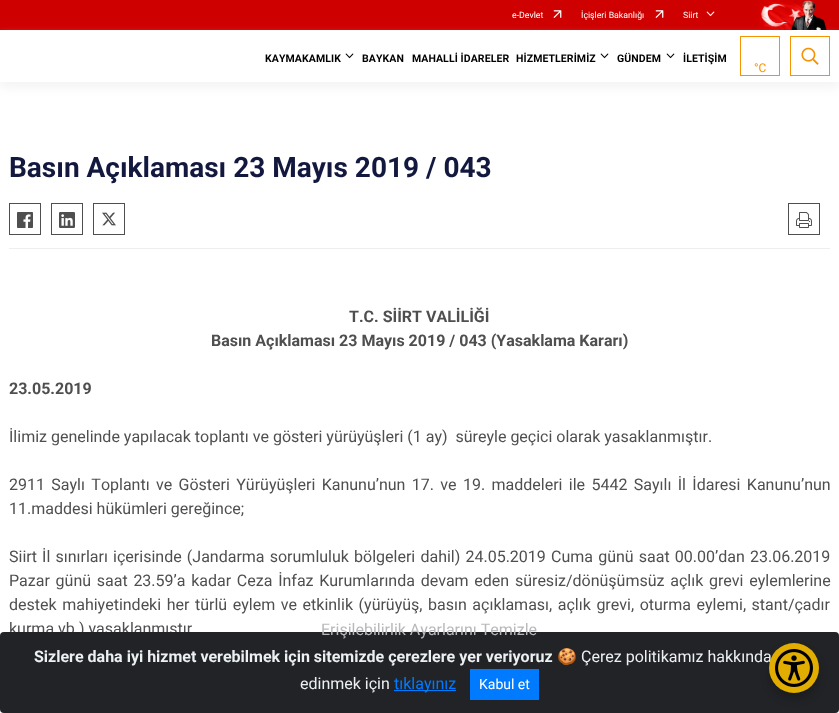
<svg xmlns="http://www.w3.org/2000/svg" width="839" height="713">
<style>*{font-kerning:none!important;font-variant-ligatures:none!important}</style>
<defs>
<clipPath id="clip1"><path d="M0 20h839v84h-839zm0 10h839v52h-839z" clip-rule="evenodd"/></clipPath>
</defs>
<rect width="100%" height="100%" fill="#fff"/>
<rect width="839" height="30" fill="#ce0000"/>
<text x="512" y="18" style="font-family:Roboto;font-size:8.75px;fill:#fff">e-Devlet</text>
<image x="553" y="10" width="9" height="8" href="media/1.png"/>
<text x="581" y="18" style="font-family:Roboto;font-size:8.75px;fill:#fff">İçişleri Bakanlığı</text>
<image x="655" y="10" width="9" height="8" href="media/1.png"/>
<text x="683" y="18" style="font-family:Roboto;font-size:8.75px;fill:#fff">Siirt</text>
<image x="706" y="11" width="9" height="6" href="media/2.png"/>
<image x="758" y="0" width="69" height="30" href="media/3.png"/>
<g clip-path="url(#clip1)">
<rect y="36" width="839" height="52" fill="#eeeeee9e" filter="blur(5px)"/>
</g>
<text x="265" y="62" style="font-family:Roboto;font-size:10.5px;font-weight:bold;letter-spacing:0.1px;fill:#000">KAYMAKAMLIK</text>
<image x="345" y="53" width="9" height="6" href="media/4.png"/>
<text x="362" y="62" style="font-family:Roboto;font-size:10.5px;font-weight:bold;letter-spacing:0.1px;fill:#000">BAYKAN</text>
<text x="412" y="62" style="font-family:Roboto;font-size:10.5px;font-weight:bold;letter-spacing:0.1px;fill:#000">MAHALLİ İDARELER</text>
<text x="516" y="62" style="font-family:Roboto;font-size:10.5px;font-weight:bold;letter-spacing:0.1px;fill:#000">HİZMETLERİMİZ</text>
<image x="600" y="53" width="9" height="6" href="media/4.png"/>
<text x="617" y="62" style="font-family:Roboto;font-size:10.5px;font-weight:bold;letter-spacing:0.1px;fill:#000">GÜNDEM</text>
<image x="666" y="53" width="9" height="6" href="media/4.png"/>
<text x="683" y="62" style="font-family:Roboto;font-size:10.5px;font-weight:bold;letter-spacing:0.1px;fill:#000">İLETİŞİM</text>
<rect x="740.5" y="36.5" width="39" height="39" fill="none" stroke="#f59300"/>
<text x="754" y="72" style="font-family:Roboto;font-size:12px;fill:#f59300">°C</text>
<rect x="790.5" y="36.5" width="39" height="39" fill="none" stroke="#f59300"/>
<image x="801" y="47" width="18" height="18" href="media/5.png"/>
<rect x="9" y="248" width="821" height="1" fill="#eee"/>
<text x="9" y="177" style="font-family:Roboto;font-size:28px;font-weight:bold;fill:#13183e">Basın Açıklaması 23 Mayıs 2019 / 043</text>
<rect x="9.5" y="203.5" width="31" height="31" fill="none" stroke="#4f4f4f"/>
<image x="17" y="212" width="16" height="16" href="media/6.png"/>
<rect x="51.5" y="203.5" width="31" height="31" fill="none" stroke="#4f4f4f"/>
<image x="59" y="212" width="16" height="16" href="media/7.png"/>
<rect x="93.5" y="203.5" width="31" height="31" fill="none" stroke="#4f4f4f"/>
<image x="102" y="212" width="14" height="14" href="media/8.png"/>
<rect x="788.5" y="203.5" width="31" height="31" fill="none" stroke="#4f4f4f"/>
<image x="796" y="212" width="16" height="16" href="media/9.png"/>
<text x="349" y="322" style="font-family:Roboto;font-size:16px;font-weight:bold;fill:#4f4f4f">T.C. SİİRT VALİLİĞİ</text>
<text x="211" y="346" style="font-family:Roboto;font-size:16px;font-weight:bold;fill:#4f4f4f">Basın Açıklaması 23 Mayıs 2019 / 043 (Yasaklama Kararı)</text>
<text x="9" y="394" style="font-family:Roboto;font-size:16px;font-weight:bold;fill:#4f4f4f">23.05.2019</text>
<text x="9" y="442" style="font-family:Roboto;font-size:16px;fill:#4f4f4f" xml:space="preserve">İlimiz genelinde yapılacak toplantı ve gösteri yürüyüşleri (1 ay)  süreyle geçici olarak yasaklanmıştır.</text>
<text x="9" y="490" word-spacing="2.4" style="font-family:Roboto;font-size:16px;fill:#4f4f4f">2911 Saylı Toplantı ve Gösteri Yürüyüşleri Kanunu’nun 17. ve 19. maddeleri ile 5442 Sayılı İl İdaresi Kanunu’nun</text>
<text x="9" y="514" style="font-family:Roboto;font-size:16px;fill:#4f4f4f">11.maddesi hükümleri gereğince;</text>
<text x="9" y="562" word-spacing="1.2" style="font-family:Roboto;font-size:16px;fill:#4f4f4f">Siirt İl sınırları içerisinde (Jandarma sorumluluk bölgeleri dahil) 24.05.2019 Cuma günü saat 00.00’dan 23.06.2019</text>
<text x="9" y="586" word-spacing="1.75" style="font-family:Roboto;font-size:16px;fill:#4f4f4f">Pazar günü saat 23.59’a kadar Ceza İnfaz Kurumlarında devam eden süresiz/dönüşümsüz açlık grevi eylemlerine</text>
<text x="9" y="610" word-spacing="1.6" style="font-family:Roboto;font-size:16px;fill:#4f4f4f">destek mahiyetindeki her türlü eylem ve etkinlik (yürüyüş, basın açıklaması, açlık grevi, oturma eylemi, stant/çadır</text>
<text x="9" y="634" style="font-family:Roboto;font-size:16px;fill:#4f4f4f">kurma vb.) yasaklanmıştır</text>
<rect y="632" width="839" height="81" rx="4" fill="#212327"/>
<text x="321" y="635" style="font-family:Roboto;font-size:16px;fill:#b9b9bb">Erişilebilirlik Ayarlarını Temizle</text>
<rect x="769" y="649" width="50" height="50" rx="25" fill="#00000033" filter="blur(4px)"/>
<text x="581" y="662" style="font-family:Roboto;font-size:16px;fill:#ecf0f1">Çerez politikamız hakkında</text>
<circle cx="794" cy="668" r="25" fill="#e1ad01"/>
<image x="775" y="649" width="38" height="38" href="media/10.png"/>
<text x="34" y="662" style="font-family:Roboto;font-size:16px;font-weight:bold;fill:#ecf0f1">Sizlere daha iyi hizmet verebilmek için sitemizde çerezlere yer veriyoruz</text>
<text x="557" y="662" style="font-family:Noto Color Emoji;font-size:16px;fill:#ecf0f1">🍪</text>
<text x="300" y="689" style="font-family:Roboto;font-size:16px;fill:#ecf0f1">edinmek için</text>
<rect x="394" y="690" width="62" height="1" fill="#007bff"/>
<text x="394" y="689" style="font-family:Roboto;font-size:16px;fill:#007bff">tıklayınız</text>
<rect x="470" y="669" width="69" height="31" fill="#007bff"/>
<text x="479" y="689" style="font-family:Roboto;font-size:14px;fill:#fff">Kabul et</text>
</svg>
